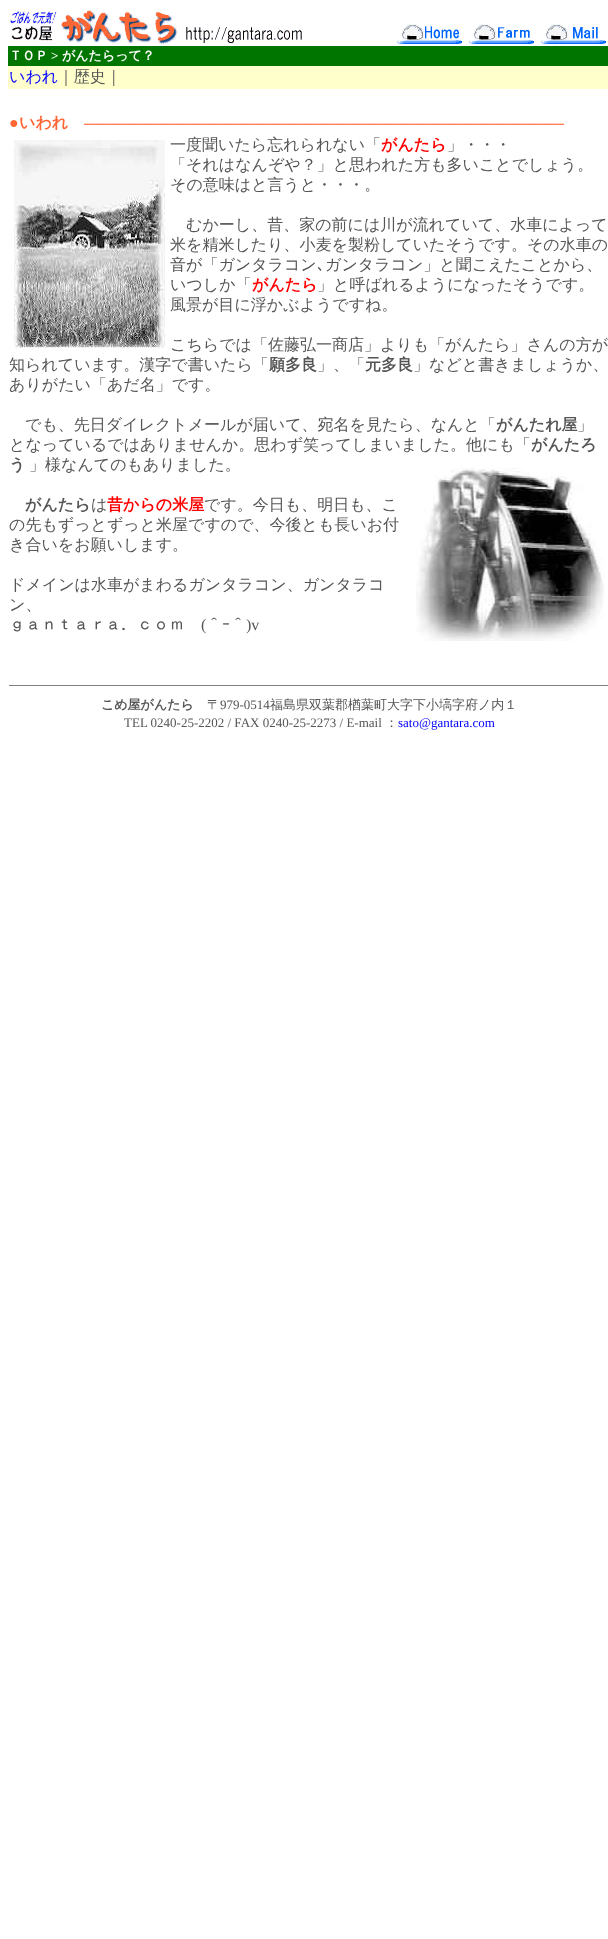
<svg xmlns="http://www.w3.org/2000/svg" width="608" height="1939">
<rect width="100%" height="100%" fill="#fff"/>
<image x="10" y="10" width="292" height="34" href="media/1.png"/>
<image x="397" y="24" width="65" height="20" href="media/2.png"/>
<image x="469" y="24" width="65" height="20" href="media/3.png"/>
<image x="541" y="24" width="65" height="20" href="media/4.png"/>
<rect x="8" y="46" width="600" height="20" fill="#007500"/>
<text x="9" y="60" style="font-family:WenQuanYi Zen Hei;font-size:13px;font-weight:bold;fill:#fff">ＴＯＰ</text>
<text x="51" y="60" style="font-family:Liberation Serif;font-size:13px;font-weight:bold;fill:#fff">&gt;</text>
<text x="62" y="60" style="font-family:WenQuanYi Zen Hei;font-size:13px;font-weight:bold;fill:#fff">がんたらって？</text>
<rect x="8" y="66" width="600" height="23" fill="#ffc"/>
<text x="9" y="82" style="font-family:WenQuanYi Zen Hei;font-size:16px;font-weight:500;fill:#00f">いわれ</text>
<text x="58" y="82" style="font-family:WenQuanYi Zen Hei;font-size:16px;font-weight:500;fill:#555">｜歴史｜</text>
<text x="9" y="128" style="font-family:Liberation Serif;font-size:16px;font-weight:bold;fill:#f63">●</text>
<text x="19" y="128" style="font-family:WenQuanYi Zen Hei;font-size:16px;font-weight:bold;fill:#f63">いわれ</text>
<text x="84" y="128" style="font-family:Liberation Serif;font-size:16px;font-weight:bold;fill:#f63">――――――――――――――――――――――――――――――</text>
<image x="14" y="140" width="151" height="208" href="media/5.png"/>
<text x="170" y="150" style="font-family:WenQuanYi Zen Hei;font-size:16px;font-weight:500;fill:#555">一度聞いたら忘れられない「</text>
<text x="381" y="150" style="font-family:WenQuanYi Zen Hei;font-size:16px;font-weight:bold;fill:#f00">がんたら</text>
<text x="447" y="150" style="font-family:WenQuanYi Zen Hei;font-size:16px;font-weight:500;fill:#555">」・・・</text>
<text x="170" y="170" style="font-family:WenQuanYi Zen Hei;font-size:16px;font-weight:500;fill:#555">「それはなんぞや？」と思われた方も多いことでしょう。</text>
<text x="170" y="190" style="font-family:WenQuanYi Zen Hei;font-size:16px;font-weight:500;fill:#555">その意味はと言うと・・・。</text>
<text x="186" y="230" style="font-family:WenQuanYi Zen Hei;font-size:16px;font-weight:500;fill:#555">むかーし、昔、家の前には川が流れていて、水車によって</text>
<text x="170" y="250" style="font-family:WenQuanYi Zen Hei;font-size:16px;font-weight:500;fill:#555">米を精米したり、小麦を製粉していたそうです。その水車の</text>
<text x="170" y="270" style="font-family:WenQuanYi Zen Hei;font-size:16px;font-weight:500;fill:#555">音が「ガンタラコン</text>
<text x="317" y="270" style="font-family:IPAGothic;font-size:16px;fill:#555">､</text>
<text x="325" y="270" style="font-family:WenQuanYi Zen Hei;font-size:16px;font-weight:500;fill:#555">ガンタラコン」と聞こえたことから、</text>
<text x="170" y="290" style="font-family:WenQuanYi Zen Hei;font-size:16px;font-weight:500;fill:#555">いつしか「</text>
<text x="252" y="290" style="font-family:WenQuanYi Zen Hei;font-size:16px;font-weight:bold;fill:#f00">がんたら</text>
<text x="317" y="290" style="font-family:WenQuanYi Zen Hei;font-size:16px;font-weight:500;fill:#555">」と呼ばれるようになったそうです。</text>
<text x="170" y="310" style="font-family:WenQuanYi Zen Hei;font-size:16px;font-weight:500;fill:#555">風景が目に浮かぶようですね。</text>
<text x="170" y="350" style="font-family:WenQuanYi Zen Hei;font-size:16px;font-weight:500;fill:#555">こちらでは「佐藤弘一商店」よりも「がんたら」さんの方が</text>
<text x="9" y="370" style="font-family:WenQuanYi Zen Hei;font-size:16px;font-weight:500;fill:#555">知られています。漢字で書いたら「</text>
<text x="269" y="370" style="font-family:WenQuanYi Zen Hei;font-size:16px;font-weight:bold;fill:#555">願多良</text>
<text x="317" y="370" style="font-family:WenQuanYi Zen Hei;font-size:16px;font-weight:500;fill:#555">」、「</text>
<text x="365" y="370" style="font-family:WenQuanYi Zen Hei;font-size:16px;font-weight:bold;fill:#555">元多良</text>
<text x="413" y="370" style="font-family:WenQuanYi Zen Hei;font-size:16px;font-weight:500;fill:#555">」などと書きましょうか、</text>
<text x="9" y="390" style="font-family:WenQuanYi Zen Hei;font-size:16px;font-weight:500;fill:#555">ありがたい「あだ名」です。</text>
<text x="25" y="430" style="font-family:WenQuanYi Zen Hei;font-size:16px;font-weight:500;fill:#555">でも、先日ダイレクトメールが届いて、宛名を見たら、なんと「</text>
<text x="496" y="430" style="font-family:WenQuanYi Zen Hei;font-size:16px;font-weight:bold;fill:#555">がんたれ屋</text>
<text x="577" y="430" style="font-family:WenQuanYi Zen Hei;font-size:16px;font-weight:500;fill:#555">」</text>
<text x="9" y="450" style="font-family:WenQuanYi Zen Hei;font-size:16px;font-weight:500;fill:#555">となっているではありませんか。思わず笑ってしまいました。他にも「</text>
<text x="531" y="450" style="font-family:WenQuanYi Zen Hei;font-size:16px;font-weight:bold;fill:#555">がんたろ</text>
<text x="9" y="470" style="font-family:WenQuanYi Zen Hei;font-size:16px;font-weight:bold;fill:#555">う</text>
<text x="29" y="470" style="font-family:WenQuanYi Zen Hei;font-size:16px;font-weight:500;fill:#555">」様なんてのもありました。</text>
<text x="25" y="510" style="font-family:WenQuanYi Zen Hei;font-size:16px;font-weight:bold;fill:#555">がんたら</text>
<text x="91" y="510" style="font-family:WenQuanYi Zen Hei;font-size:16px;font-weight:500;fill:#555">は</text>
<text x="107" y="510" style="font-family:WenQuanYi Zen Hei;font-size:16px;font-weight:bold;fill:#f00">昔からの米屋</text>
<text x="204" y="510" style="font-family:WenQuanYi Zen Hei;font-size:16px;font-weight:500;fill:#555">です。今日も、明日も、こ</text>
<image x="416" y="468" width="188" height="173" href="media/6.png"/>
<text x="9" y="530" style="font-family:WenQuanYi Zen Hei;font-size:16px;font-weight:500;fill:#555">の先もずっとずっと米屋ですので、今後とも長いお付</text>
<text x="9" y="550" style="font-family:WenQuanYi Zen Hei;font-size:16px;font-weight:500;fill:#555">き合いをお願いします。</text>
<text x="9" y="590" style="font-family:WenQuanYi Zen Hei;font-size:16px;font-weight:500;fill:#555">ドメインは水車がまわるガンタラコン、ガンタラコ</text>
<text x="9" y="610" style="font-family:WenQuanYi Zen Hei;font-size:16px;font-weight:500;fill:#555">ン、</text>
<text x="9" y="630" style="font-family:IPAGothic;font-size:16px;fill:#555">ｇａｎｔａｒａ．ｃｏｍ</text>
<text x="201" y="630" style="font-family:Liberation Serif;font-size:16px;fill:#555">(</text>
<text x="206" y="630" style="font-family:IPAGothic;font-size:16px;fill:#555">＾ｰ＾</text>
<text x="246" y="630" style="font-family:Liberation Serif;font-size:16px;fill:#555">)v</text>
<rect x="9" y="685" width="599" height="1" fill="#808080"/>
<text x="101" y="709" style="font-family:WenQuanYi Zen Hei;font-size:13px;font-weight:bold;fill:#555">こめ屋がんたら</text>
<text x="207" y="709" style="font-family:WenQuanYi Zen Hei;font-size:13px;font-weight:500;fill:#555">〒</text>
<text x="220" y="709" style="font-family:Liberation Serif;font-size:13px;fill:#555">979-0514</text>
<text x="270" y="709" style="font-family:WenQuanYi Zen Hei;font-size:13px;font-weight:500;fill:#555">福島県双葉郡楢葉町大字下小塙字府ノ内１</text>
<text x="124" y="727" style="font-family:Liberation Serif;font-size:13px;fill:#555">TEL 0240-25-2202 / FAX 0240-25-2273 / E-mail</text>
<text x="385" y="727" style="font-family:WenQuanYi Zen Hei;font-size:13px;font-weight:500;fill:#555">：</text>
<text x="398" y="727" style="font-family:Liberation Serif;font-size:13px;fill:#00f">sato@gantara.com</text>
</svg>
